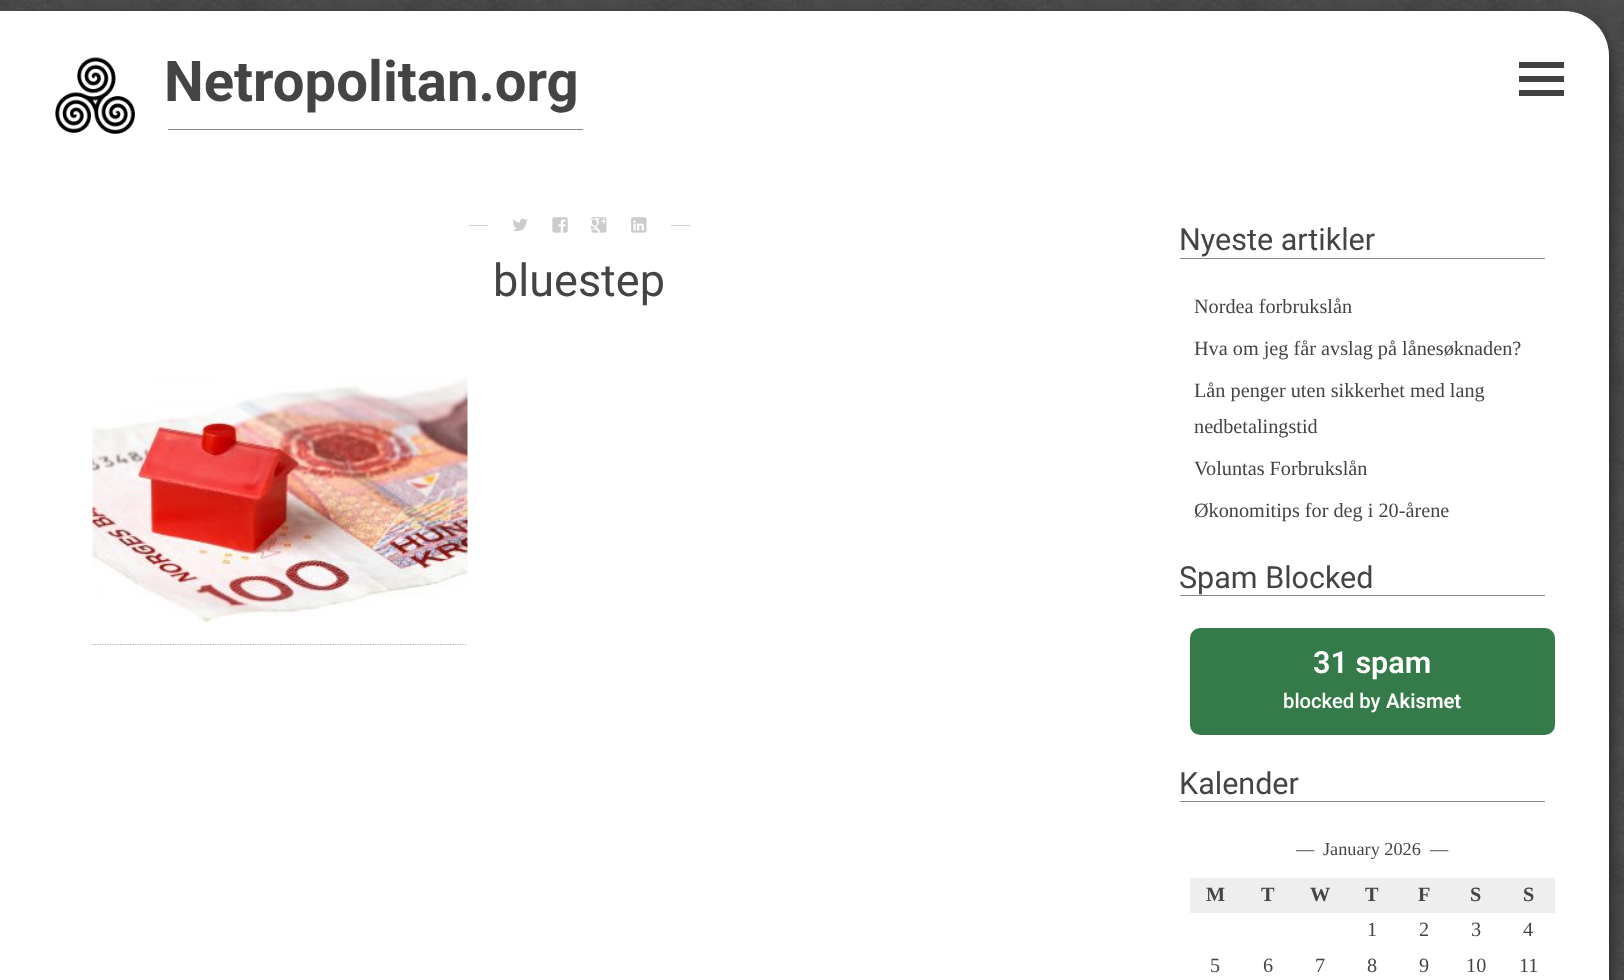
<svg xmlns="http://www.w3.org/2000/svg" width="1624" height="980">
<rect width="100%" height="100%" fill="#fff"/>
<image x="0" y="0" width="1624" height="980" href="media/1.png"/>
<rect x="-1" y="18" width="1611" height="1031" rx="46" fill="#222" filter="blur(7.5px)"/>
<path d="M0 11h1564c25 0 45 20 45 45v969h-1609z" fill="#fff"/>
<image x="55" y="57" width="80" height="77" href="media/2.png"/>
<text x="164" y="101" style="font-family:Roboto;font-size:56.25px;font-weight:bold;fill:#444">Netropolitan.org</text>
<rect x="168" y="129" width="415" height="1" fill="#888"/>
<path d="M1519 96v-6h45v6zm0-34h45v6h-45zm0 20v-6h45v6z" fill="#404040"/>
<text x="469" y="230" style="font-family:Liberation Serif;font-size:19px;fill:#ccc">―</text>
<image x="512" y="218" width="16" height="14" href="media/3.png"/>
<image x="552" y="217" width="16" height="16" href="media/4.png"/>
<image x="591" y="217" width="16" height="16" href="media/5.png"/>
<image x="631" y="217" width="16" height="16" href="media/6.png"/>
<text x="671" y="230" style="font-family:Liberation Serif;font-size:19px;fill:#ccc">―</text>
<text x="493" y="296" style="font-family:Roboto;font-size:45px;fill:#444">bluestep</text>
<image x="92" y="377" width="376" height="249" href="media/7.png"/>
<path d="M92.5 644.5h375" fill="none" stroke="#aaa" stroke-width="1.2" stroke-dasharray="1.25 1.25"/>
<rect x="1180" y="258" width="365" height="1" fill="#888"/>
<text x="1179" y="250" style="font-family:Roboto;font-size:30.5px;fill:#444">Nyeste artikler</text>
<text x="1194" y="313" style="font-family:Liberation Serif;font-size:20.25px;fill:#444">Nordea forbrukslån</text>
<text x="1194" y="355" style="font-family:Liberation Serif;font-size:20.25px;fill:#444">Hva om jeg får avslag på lånesøknaden?</text>
<text x="1194" y="397" style="font-family:Liberation Serif;font-size:20.25px;fill:#444">Lån penger uten sikkerhet med lang</text>
<text x="1194" y="433" style="font-family:Liberation Serif;font-size:20.25px;fill:#444">nedbetalingstid</text>
<text x="1194" y="475" style="font-family:Liberation Serif;font-size:20.25px;fill:#444">Voluntas Forbrukslån</text>
<text x="1194" y="517" style="font-family:Liberation Serif;font-size:20.25px;fill:#444">Økonomitips for deg i 20-årene</text>
<rect x="1180" y="595" width="365" height="1" fill="#888"/>
<text x="1179" y="588" style="font-family:Roboto;font-size:30.5px;fill:#444">Spam Blocked</text>
<rect x="1190" y="628" width="365" height="107" rx="10" fill="#357b49"/>
<text x="1313" y="673" style="font-family:Roboto;font-size:30.5px;font-weight:600;fill:#fff">31 spam</text>
<text x="1283" y="708" style="font-family:Roboto;font-size:20.25px;font-weight:500;fill:#fff">blocked by</text>
<text x="1386" y="708" style="font-family:Roboto;font-size:20.25px;font-weight:600;fill:#fff">Akismet</text>
<rect x="1180" y="801" width="365" height="1" fill="#888"/>
<text x="1179" y="794" style="font-family:Roboto;font-size:30.5px;fill:#444">Kalender</text>
<text x="1296" y="855" style="font-family:Liberation Serif;font-size:18.25px;fill:#444">―</text>
<text x="1323" y="855" style="font-family:Liberation Serif;font-size:18.25px;fill:#444">January 2026</text>
<text x="1430" y="855" style="font-family:Liberation Serif;font-size:18.25px;fill:#444">―</text>
<rect x="1190" y="878" width="365" height="35" fill="#eee"/>
<text x="1206" y="901" style="font-family:Liberation Serif;font-size:20.25px;font-weight:bold;fill:#444">M</text>
<text x="1261" y="901" style="font-family:Liberation Serif;font-size:20.25px;font-weight:bold;fill:#444">T</text>
<text x="1310" y="901" style="font-family:Liberation Serif;font-size:20.25px;font-weight:bold;fill:#444">W</text>
<text x="1365" y="901" style="font-family:Liberation Serif;font-size:20.25px;font-weight:bold;fill:#444">T</text>
<text x="1418" y="901" style="font-family:Liberation Serif;font-size:20.25px;font-weight:bold;fill:#444">F</text>
<text x="1470" y="901" style="font-family:Liberation Serif;font-size:20.25px;font-weight:bold;fill:#444">S</text>
<text x="1523" y="901" style="font-family:Liberation Serif;font-size:20.25px;font-weight:bold;fill:#444">S</text>
<text x="1367" y="936" style="font-family:Liberation Serif;font-size:20.25px;fill:#444">1</text>
<text x="1419" y="936" style="font-family:Liberation Serif;font-size:20.25px;fill:#444">2</text>
<text x="1471" y="936" style="font-family:Liberation Serif;font-size:20.25px;fill:#444">3</text>
<text x="1523" y="936" style="font-family:Liberation Serif;font-size:20.25px;fill:#444">4</text>
<text x="1210" y="972" style="font-family:Liberation Serif;font-size:20.25px;fill:#444">5</text>
<text x="1263" y="972" style="font-family:Liberation Serif;font-size:20.25px;fill:#444">6</text>
<text x="1315" y="972" style="font-family:Liberation Serif;font-size:20.25px;fill:#444">7</text>
<text x="1367" y="972" style="font-family:Liberation Serif;font-size:20.25px;fill:#444">8</text>
<text x="1419" y="972" style="font-family:Liberation Serif;font-size:20.25px;fill:#444">9</text>
<text x="1466" y="972" style="font-family:Liberation Serif;font-size:20.25px;fill:#444">10</text>
<text x="1519" y="972" style="font-family:Liberation Serif;font-size:20.25px;fill:#444">11</text>
</svg>
